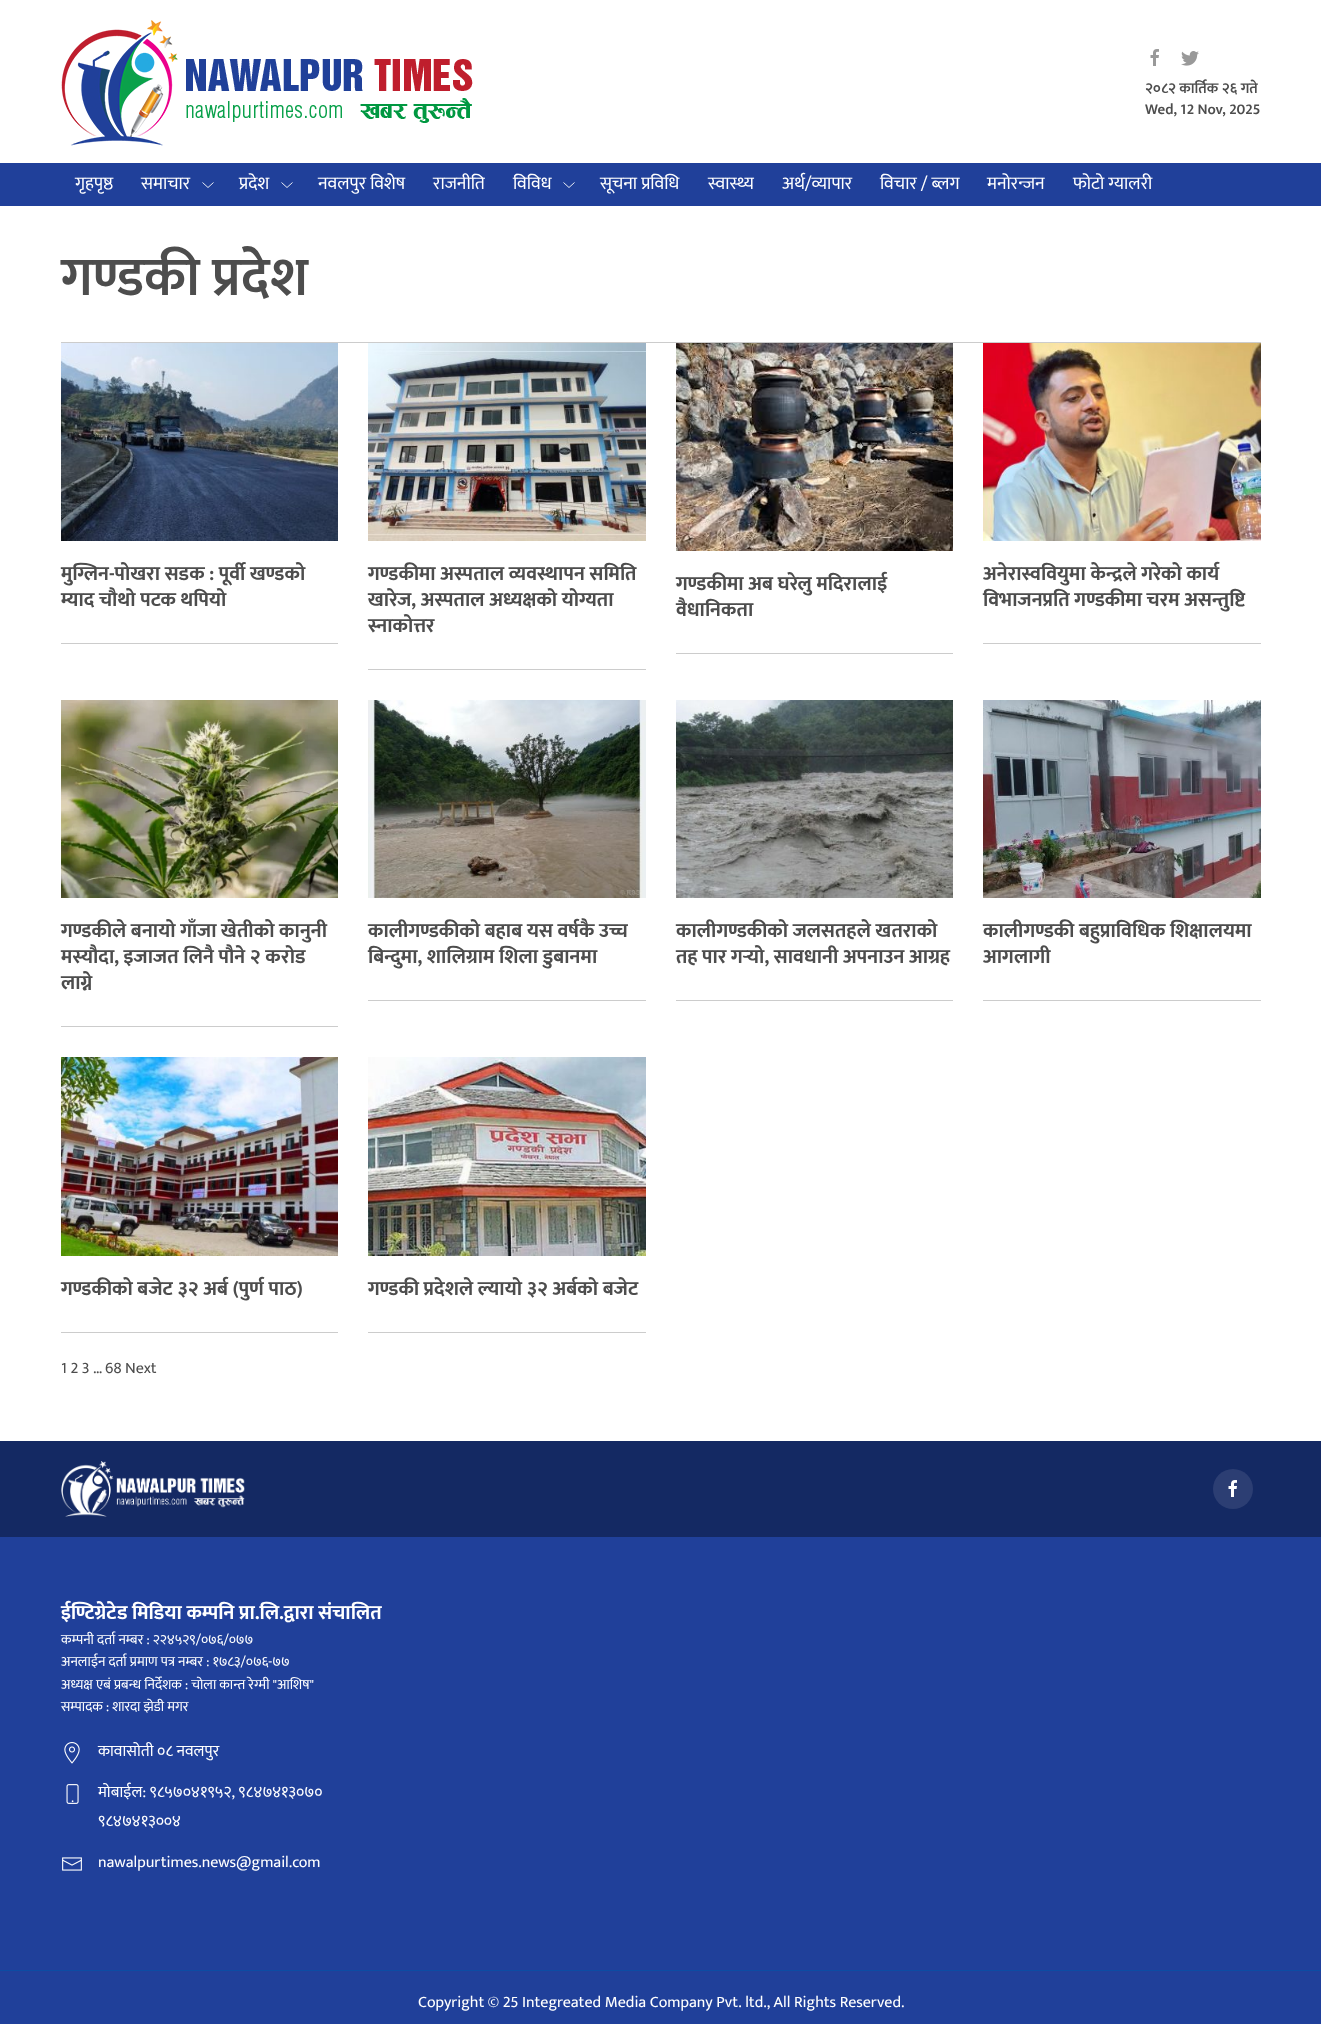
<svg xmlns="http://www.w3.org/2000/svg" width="1321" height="2024">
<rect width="100%" height="100%" fill="#fff"/>
<image x="61" y="20" width="412" height="126" href="media/1.png"/>
<image x="1150" y="49" width="9" height="17" href="media/2.png"/>
<image x="1181" y="51" width="18" height="15" href="media/3.png"/>
<text x="1145" y="93" style="font-family:Mukta;font-size:15px;font-weight:600;fill:#4d4d4d">२०८२ कार्तिक २६ गते</text>
<text x="1145" y="114" style="font-family:Mukta;font-size:15px;font-weight:600;fill:#4d4d4d">Wed, 12 Nov, 2025</text>
<rect y="163" width="1321" height="43" fill="#20409a"/>
<text x="75" y="189" style="font-family:Mukta;font-size:18px;fill:#fff">गृहपृष्ठ</text>
<text x="141" y="189" style="font-family:Mukta;font-size:18px;fill:#fff">समाचार</text>
<path d="M213.5 182.5l-5.5 5l-5.5-5" fill="none" stroke="#fff" stroke-width="0.9"/>
<text x="239" y="189" style="font-family:Mukta;font-size:18px;fill:#fff">प्रदेश</text>
<path d="M292.5 182.5l-5.5 5l-5.5-5" fill="none" stroke="#fff" stroke-width="0.9"/>
<text x="318" y="189" style="font-family:Mukta;font-size:18px;fill:#fff">नवलपुर विशेष</text>
<text x="433" y="189" style="font-family:Mukta;font-size:18px;fill:#fff">राजनीति</text>
<text x="513" y="189" style="font-family:Mukta;font-size:18px;fill:#fff">विविध</text>
<path d="M574.5 182.5l-5.5 5l-5.5-5" fill="none" stroke="#fff" stroke-width="0.9"/>
<text x="600" y="189" style="font-family:Mukta;font-size:18px;fill:#fff">सूचना प्रविधि</text>
<text x="708" y="189" style="font-family:Mukta;font-size:18px;fill:#fff">स्वास्थ्य</text>
<text x="782" y="189" style="font-family:Mukta;font-size:18px;fill:#fff">अर्थ/व्यापार</text>
<text x="880" y="189" style="font-family:Mukta;font-size:18px;fill:#fff">विचार / ब्लग</text>
<text x="987" y="189" style="font-family:Mukta;font-size:18px;fill:#fff">मनोरन्जन</text>
<text x="1073" y="189" style="font-family:Mukta;font-size:18px;fill:#fff">फोटो ग्यालरी</text>
<rect x="61" y="342" width="1200" height="1" fill="#ccc"/>
<text x="61" y="295" style="font-family:Mukta;font-size:55px;font-weight:600;fill:#4d4d4d">गण्डकी प्रदेश</text>
<image x="61" y="343" width="277" height="198" href="media/4.png"/>
<rect x="61" y="643" width="277" height="1" fill="#ccc"/>
<text x="61" y="580" style="font-family:Mukta;font-size:20px;font-weight:bold;fill:#4d4d4d">मुग्लिन-पोखरा सडक : पूर्वी खण्डको</text>
<text x="61" y="606" style="font-family:Mukta;font-size:20px;font-weight:bold;fill:#4d4d4d">म्याद चौथो पटक थपियो</text>
<image x="368" y="343" width="278" height="198" href="media/5.png"/>
<rect x="368" y="669" width="278" height="1" fill="#ccc"/>
<text x="368" y="580" style="font-family:Mukta;font-size:20px;font-weight:bold;fill:#4d4d4d">गण्डकीमा अस्पताल व्यवस्थापन समिति</text>
<text x="368" y="606" style="font-family:Mukta;font-size:20px;font-weight:bold;fill:#4d4d4d">खारेज, अस्पताल अध्यक्षको योग्यता</text>
<text x="368" y="632" style="font-family:Mukta;font-size:20px;font-weight:bold;fill:#4d4d4d">स्नाकोत्तर</text>
<image x="676" y="343" width="277" height="208" href="media/6.png"/>
<rect x="676" y="653" width="277" height="1" fill="#ccc"/>
<text x="676" y="590" style="font-family:Mukta;font-size:20px;font-weight:bold;fill:#4d4d4d">गण्डकीमा अब घरेलु मदिरालाई</text>
<text x="676" y="616" style="font-family:Mukta;font-size:20px;font-weight:bold;fill:#4d4d4d">वैधानिकता</text>
<image x="983" y="343" width="278" height="198" href="media/7.png"/>
<rect x="983" y="643" width="278" height="1" fill="#ccc"/>
<text x="983" y="580" style="font-family:Mukta;font-size:20px;font-weight:bold;fill:#4d4d4d">अनेरास्ववियुमा केन्द्रले गरेको कार्य</text>
<text x="983" y="606" style="font-family:Mukta;font-size:20px;font-weight:bold;fill:#4d4d4d">विभाजनप्रति गण्डकीमा चरम असन्तुष्टि</text>
<image x="61" y="700" width="277" height="198" href="media/8.png"/>
<rect x="61" y="1026" width="277" height="1" fill="#ccc"/>
<text x="61" y="937" style="font-family:Mukta;font-size:20px;font-weight:bold;fill:#4d4d4d">गण्डकीले बनायो गाँजा खेतीको कानुनी</text>
<text x="61" y="963" style="font-family:Mukta;font-size:20px;font-weight:bold;fill:#4d4d4d">मस्यौदा, इजाजत लिनै पौने २ करोड</text>
<text x="61" y="989" style="font-family:Mukta;font-size:20px;font-weight:bold;fill:#4d4d4d">लाग्ने</text>
<image x="368" y="700" width="278" height="198" href="media/9.png"/>
<rect x="368" y="1000" width="278" height="1" fill="#ccc"/>
<text x="368" y="937" style="font-family:Mukta;font-size:20px;font-weight:bold;fill:#4d4d4d">कालीगण्डकीको बहाब यस वर्षकै उच्च</text>
<text x="368" y="963" style="font-family:Mukta;font-size:20px;font-weight:bold;fill:#4d4d4d">बिन्दुमा, शालिग्राम शिला डुबानमा</text>
<image x="676" y="700" width="277" height="198" href="media/10.png"/>
<rect x="676" y="1000" width="277" height="1" fill="#ccc"/>
<text x="676" y="937" style="font-family:Mukta;font-size:20px;font-weight:bold;fill:#4d4d4d">कालीगण्डकीको जलसतहले खतराको</text>
<text x="676" y="963" style="font-family:Mukta;font-size:20px;font-weight:bold;fill:#4d4d4d">तह पार गर्‍यो, सावधानी अपनाउन आग्रह</text>
<image x="983" y="700" width="278" height="198" href="media/11.png"/>
<rect x="983" y="1000" width="278" height="1" fill="#ccc"/>
<text x="983" y="937" style="font-family:Mukta;font-size:20px;font-weight:bold;fill:#4d4d4d">कालीगण्डकी बहुप्राविधिक शिक्षालयमा</text>
<text x="983" y="963" style="font-family:Mukta;font-size:20px;font-weight:bold;fill:#4d4d4d">आगलागी</text>
<image x="61" y="1057" width="277" height="199" href="media/12.png"/>
<rect x="61" y="1332" width="277" height="1" fill="#ccc"/>
<text x="61" y="1295" style="font-family:Mukta;font-size:20px;font-weight:bold;fill:#4d4d4d">गण्डकीको बजेट ३२ अर्ब (पुर्ण पाठ)</text>
<image x="368" y="1057" width="278" height="199" href="media/13.png"/>
<rect x="368" y="1332" width="278" height="1" fill="#ccc"/>
<text x="368" y="1295" style="font-family:Mukta;font-size:20px;font-weight:bold;fill:#4d4d4d">गण्डकी प्रदेशले ल्यायो ३२ अर्बको बजेट</text>
<text x="61" y="1373" style="font-family:Mukta;font-size:16px;fill:#4d4d4d">1 2 3 …</text>
<text x="105" y="1373" style="font-family:Mukta;font-size:16px;fill:#4d4d4d">68 Next</text>
<rect y="1537" width="1321" height="433" fill="#20409a"/>
<rect y="1441" width="1321" height="96" fill="#142963"/>
<image x="61" y="1461" width="184" height="56" href="media/14.png"/>
<circle cx="1233" cy="1489" r="20" fill="#2c3e73"/>
<image x="1228" y="1480" width="9" height="17" href="media/15.png"/>
<text x="61" y="1619" style="font-family:Mukta;font-size:20px;font-weight:bold;fill:#fff">ईण्टिग्रेटेड मिडिया कम्पनि प्रा.लि.द्वारा संचालित</text>
<text x="61" y="1644" style="font-family:Mukta;font-size:14px;fill:#fff">कम्पनी दर्ता नम्बर : २२४५२९/०७६/०७७</text>
<text x="61" y="1666" style="font-family:Mukta;font-size:14px;fill:#fff">अनलाईन दर्ता प्रमाण पत्र नम्बर : १७८३/०७६-७७</text>
<text x="61" y="1689" style="font-family:Mukta;font-size:14px;fill:#fff">अध्यक्ष एबं प्रबन्ध निर्देशक : चोला कान्त रेग्मी "आशिष"</text>
<text x="61" y="1711" style="font-family:Mukta;font-size:14px;fill:#fff">सम्पादक : शारदा झेडी मगर</text>
<image x="64" y="1742" width="16" height="22" href="media/16.png"/>
<text x="98" y="1756" style="font-family:Mukta;font-size:16px;fill:#fff">कावासोती ०८ नवलपुर</text>
<image x="66" y="1784" width="13" height="20" href="media/17.png"/>
<text x="98" y="1797" style="font-family:Mukta;font-size:16px;fill:#fff">मोबाईल: ९८५७०४१९५२, ९८४७४१३०७०</text>
<text x="98" y="1826" style="font-family:Mukta;font-size:16px;fill:#fff">९८४७४१३००४</text>
<image x="62" y="1857" width="20" height="14" href="media/18.png"/>
<text x="98" y="1867" style="font-family:Mukta;font-size:16px;fill:#fff">nawalpurtimes.news@gmail.com</text>
<rect y="1971" width="1321" height="53" fill="#20409a"/>
<rect y="1970" width="1321" height="1" fill="#0c4ca3"/>
<text x="418" y="2007" style="font-family:Mukta;font-size:16px;fill:#fff">Copyright © 25 Integreated Media Company Pvt. ltd., All Rights Reserved.</text>
</svg>
